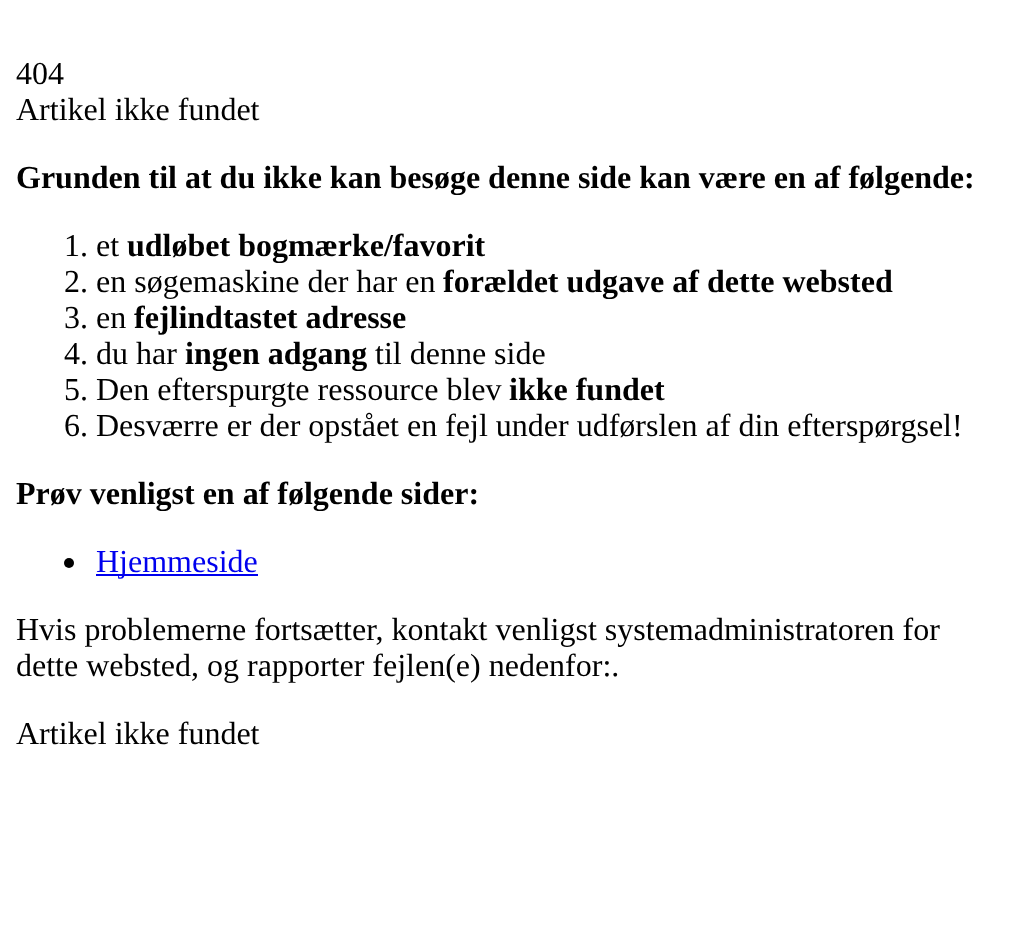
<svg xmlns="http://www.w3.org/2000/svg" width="1024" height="927">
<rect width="100%" height="100%" fill="#fff"/>
<text x="16" y="84" style="font-family:Liberation Serif;font-size:32px;fill:#000">404</text>
<text x="16" y="120" style="font-family:Liberation Serif;font-size:32px;fill:#000">Artikel ikke fundet</text>
<text x="16" y="188" style="font-family:Liberation Serif;font-size:32px;font-weight:bold;fill:#000">Grunden til at du ikke kan besøge denne side kan være en af følgende:</text>
<text x="64" y="256" style="font-family:Liberation Serif;font-size:32px;fill:#000">1. et</text>
<text x="127" y="256" style="font-family:Liberation Serif;font-size:32px;font-weight:bold;fill:#000">udløbet bogmærke/favorit</text>
<text x="64" y="292" style="font-family:Liberation Serif;font-size:32px;fill:#000">2. en søgemaskine der har en</text>
<text x="443" y="292" style="font-family:Liberation Serif;font-size:32px;font-weight:bold;fill:#000">forældet udgave af dette websted</text>
<text x="64" y="328" style="font-family:Liberation Serif;font-size:32px;fill:#000">3. en</text>
<text x="134" y="328" style="font-family:Liberation Serif;font-size:32px;font-weight:bold;fill:#000">fejlindtastet adresse</text>
<text x="64" y="364" style="font-family:Liberation Serif;font-size:32px;fill:#000">4. du har</text>
<text x="185" y="364" style="font-family:Liberation Serif;font-size:32px;font-weight:bold;fill:#000">ingen adgang</text>
<text x="375" y="364" style="font-family:Liberation Serif;font-size:32px;fill:#000">til denne side</text>
<text x="64" y="400" style="font-family:Liberation Serif;font-size:32px;fill:#000">5. Den efterspurgte ressource blev</text>
<text x="509" y="400" style="font-family:Liberation Serif;font-size:32px;font-weight:bold;fill:#000">ikke fundet</text>
<text x="64" y="436" style="font-family:Liberation Serif;font-size:32px;fill:#000">6. Desværre er der opstået en fejl under udførslen af din efterspørgsel!</text>
<text x="16" y="504" style="font-family:Liberation Serif;font-size:32px;font-weight:bold;fill:#000">Prøv venligst en af følgende sider:</text>
<circle cx="69" cy="563" r="5" fill="#000"/>
<rect x="96" y="574" width="162" height="2" fill="#00e"/>
<text x="96" y="572" style="font-family:Liberation Serif;font-size:32px;fill:#00e">Hjemmeside</text>
<text x="16" y="640" style="font-family:Liberation Serif;font-size:32px;fill:#000">Hvis problemerne fortsætter, kontakt venligst systemadministratoren for</text>
<text x="16" y="676" style="font-family:Liberation Serif;font-size:32px;fill:#000">dette websted, og rapporter fejlen(e) nedenfor:.</text>
<text x="16" y="744" style="font-family:Liberation Serif;font-size:32px;fill:#000">Artikel ikke fundet</text>
</svg>
